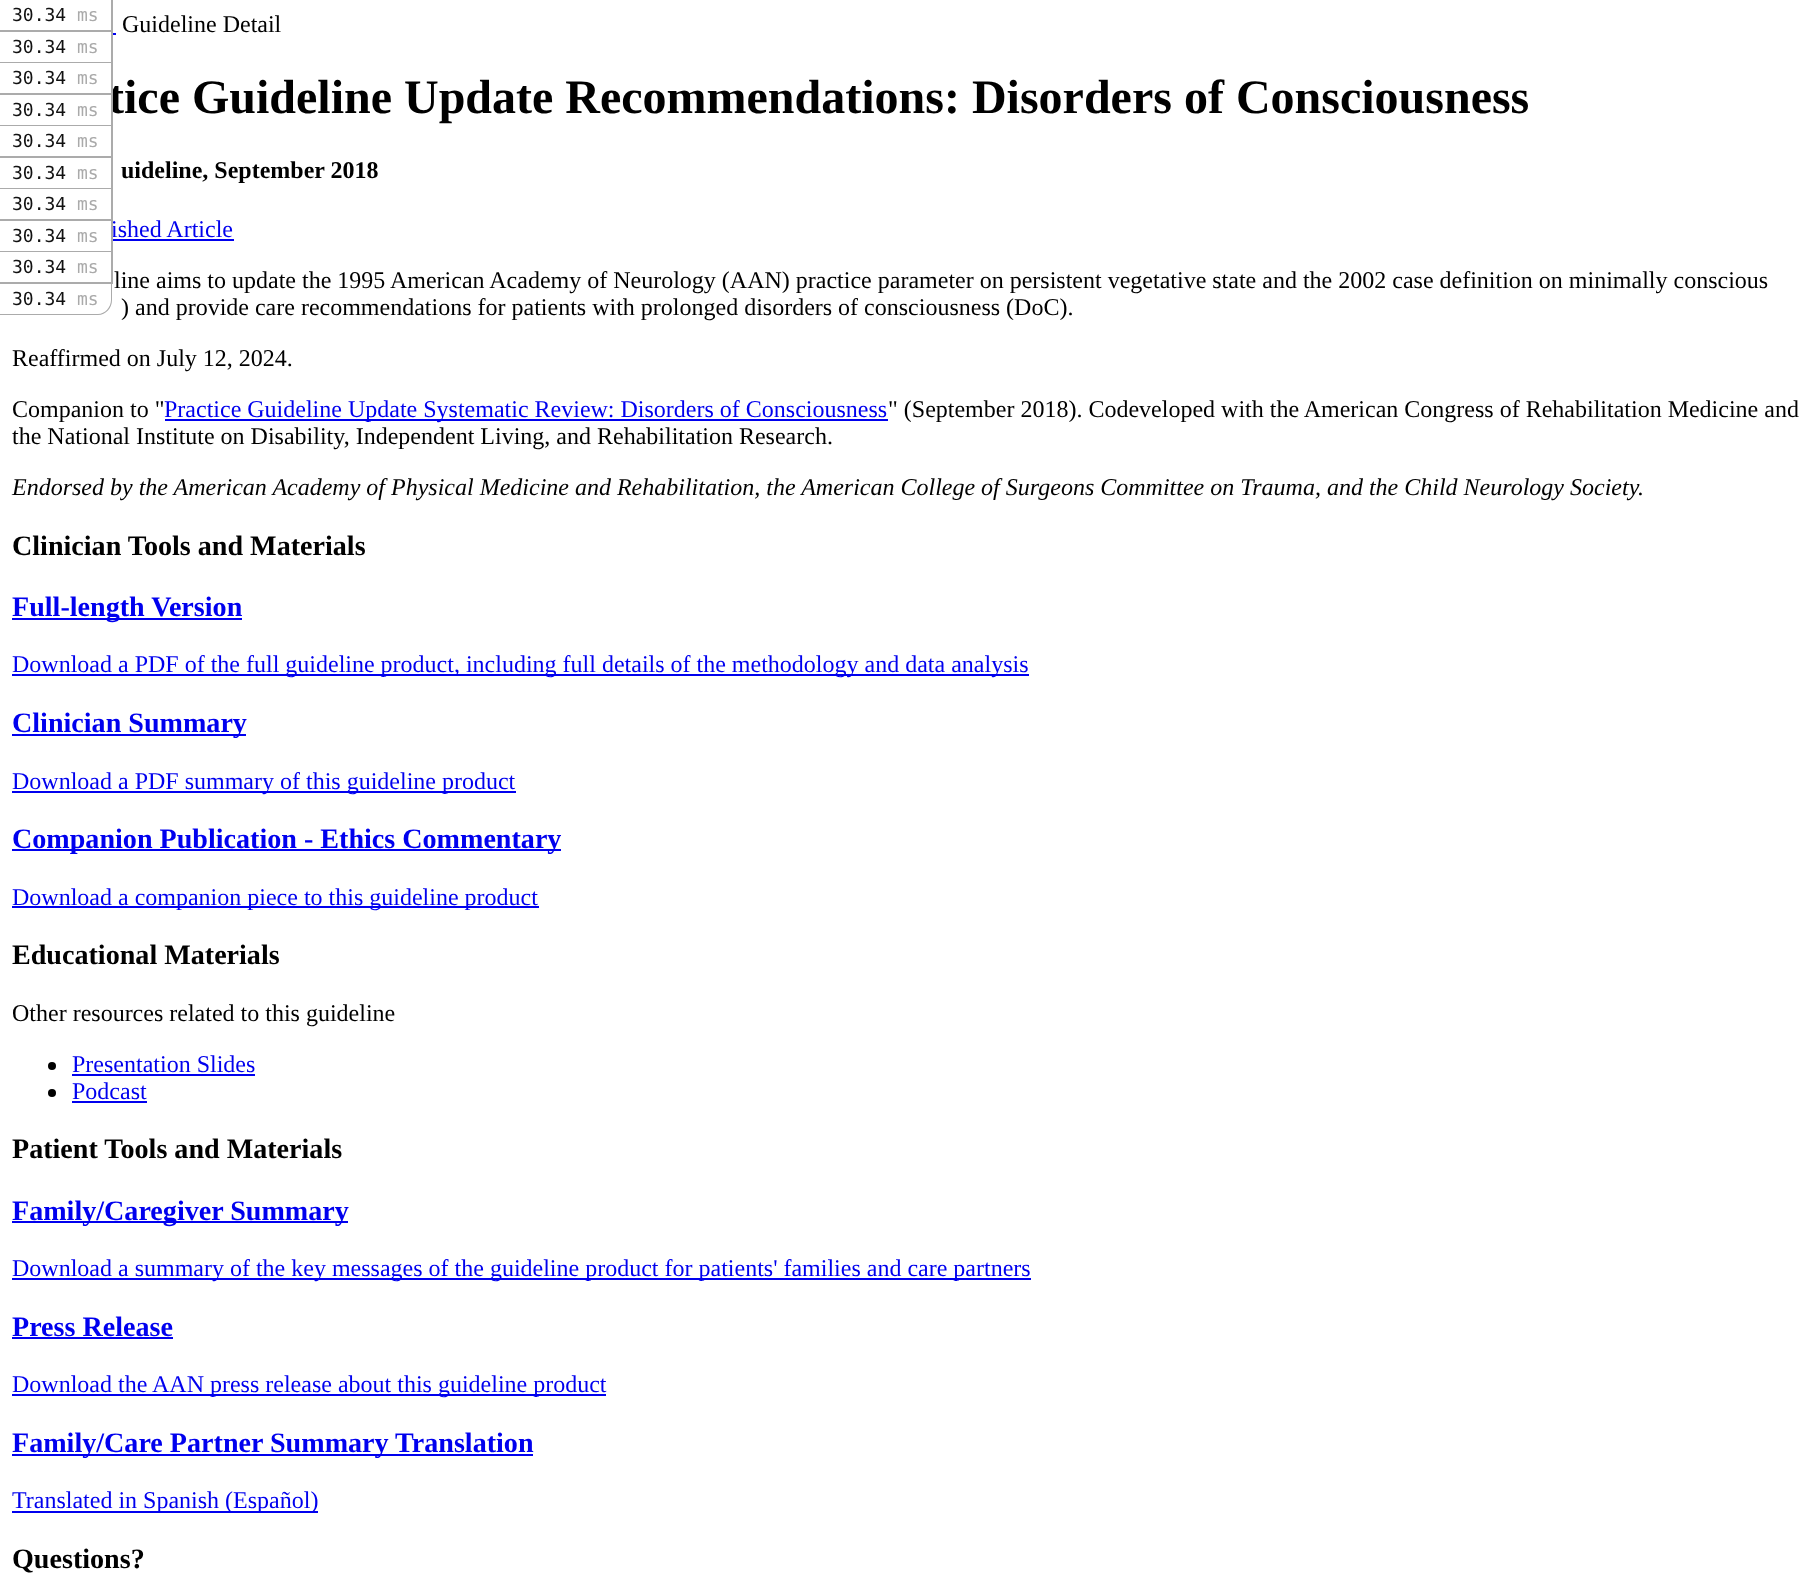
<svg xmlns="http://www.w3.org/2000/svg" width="1811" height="1590">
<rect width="100%" height="100%" fill="#fff"/>
<text x="108" y="113" style="font-family:Liberation Serif;font-size:48px;font-weight:bold;fill:#000">tice Guideline Update Recommendations: Disorders of Consciousness</text>
<text x="111" y="237" style="font-family:Liberation Serif;font-size:24px;fill:#00e">ished Article</text>
<rect x="111" width="2" height="284" fill="#ababab"/>
<rect y="30" width="113" height="2" fill="#ababab"/>
<text x="12" y="21" style="font-family:DejaVu Sans Mono;font-size:18px;fill:#111">30.34</text>
<text x="77" y="21" style="font-family:DejaVu Sans Mono;font-size:18px;fill:#aaa">ms</text>
<rect y="62" width="113" height="1" fill="#ababab"/>
<text x="12" y="53" style="font-family:DejaVu Sans Mono;font-size:18px;fill:#111">30.34</text>
<text x="77" y="53" style="font-family:DejaVu Sans Mono;font-size:18px;fill:#aaa">ms</text>
<rect x="108" y="91" width="3" height="2" fill="#fff"/>
<rect y="93" width="113" height="2" fill="#ababab"/>
<text x="12" y="84" style="font-family:DejaVu Sans Mono;font-size:18px;fill:#111">30.34</text>
<text x="77" y="84" style="font-family:DejaVu Sans Mono;font-size:18px;fill:#aaa">ms</text>
<rect y="125" width="113" height="1" fill="#ababab"/>
<text x="12" y="116" style="font-family:DejaVu Sans Mono;font-size:18px;fill:#111">30.34</text>
<text x="77" y="116" style="font-family:DejaVu Sans Mono;font-size:18px;fill:#aaa">ms</text>
<rect y="156" width="113" height="2" fill="#ababab"/>
<text x="12" y="147" style="font-family:DejaVu Sans Mono;font-size:18px;fill:#111">30.34</text>
<text x="77" y="147" style="font-family:DejaVu Sans Mono;font-size:18px;fill:#aaa">ms</text>
<rect y="188" width="113" height="1" fill="#ababab"/>
<text x="12" y="179" style="font-family:DejaVu Sans Mono;font-size:18px;fill:#111">30.34</text>
<text x="77" y="179" style="font-family:DejaVu Sans Mono;font-size:18px;fill:#aaa">ms</text>
<rect y="219" width="113" height="2" fill="#ababab"/>
<text x="12" y="210" style="font-family:DejaVu Sans Mono;font-size:18px;fill:#111">30.34</text>
<text x="77" y="210" style="font-family:DejaVu Sans Mono;font-size:18px;fill:#aaa">ms</text>
<rect y="251" width="113" height="1" fill="#ababab"/>
<text x="12" y="242" style="font-family:DejaVu Sans Mono;font-size:18px;fill:#111">30.34</text>
<text x="77" y="242" style="font-family:DejaVu Sans Mono;font-size:18px;fill:#aaa">ms</text>
<rect y="282" width="113" height="2" fill="#ababab"/>
<text x="12" y="273" style="font-family:DejaVu Sans Mono;font-size:18px;fill:#111">30.34</text>
<text x="77" y="273" style="font-family:DejaVu Sans Mono;font-size:18px;fill:#aaa">ms</text>
<path d="M0 284h112v16c0 8-6 15-14 15h-98zm0 0h111v16c0 7-6 14-13 14h-98z" fill="#ababab" fill-rule="evenodd"/>
<text x="12" y="305" style="font-family:DejaVu Sans Mono;font-size:18px;fill:#111">30.34</text>
<text x="77" y="305" style="font-family:DejaVu Sans Mono;font-size:18px;fill:#aaa">ms</text>
<text x="122" y="32" style="font-family:Liberation Serif;font-size:24px;fill:#000">Guideline Detail</text>
<rect x="113" y="33" width="3" height="2" fill="#00e"/>
<text x="121" y="178" style="font-family:Liberation Serif;font-size:24px;font-weight:bold;fill:#000">uideline, September 2018</text>
<rect x="113" y="239" width="121" height="2" fill="#00e"/>
<text x="114" y="288" style="font-family:Liberation Serif;font-size:24px;fill:#000">line aims to update the 1995 American Academy of Neurology (AAN) practice parameter on persistent vegetative state and the 2002 case definition on minimally conscious</text>
<text x="121" y="315" style="font-family:Liberation Serif;font-size:24px;fill:#000">) and provide care recommendations for patients with prolonged disorders of consciousness (DoC).</text>
<text x="12" y="366" style="font-family:Liberation Serif;font-size:24px;fill:#000">Reaffirmed on July 12, 2024.</text>
<text x="12" y="417" style="font-family:Liberation Serif;font-size:24px;fill:#000">Companion to "</text>
<rect x="165" y="419" width="723" height="2" fill="#00e"/>
<text x="164" y="417" style="font-family:Liberation Serif;font-size:24px;fill:#00e">Practice Guideline Update Systematic Review: Disorders of Consciousness</text>
<text x="888" y="417" style="font-family:Liberation Serif;font-size:24px;fill:#000">" (September 2018). Codeveloped with the American Congress of Rehabilitation Medicine and</text>
<text x="12" y="444" style="font-family:Liberation Serif;font-size:24px;fill:#000">the National Institute on Disability, Independent Living, and Rehabilitation Research.</text>
<text x="12" y="495" style="font-family:Liberation Serif;font-size:24px;font-style:italic;fill:#000">Endorsed by the American Academy of Physical Medicine and Rehabilitation, the American College of Surgeons Committee on Trauma, and the Child Neurology Society.</text>
<text x="12" y="555" style="font-family:Liberation Serif;font-size:28.1px;font-weight:bold;fill:#000">Clinician Tools and Materials</text>
<rect x="12" y="618" width="230" height="2" fill="#00e"/>
<text x="12" y="616" style="font-family:Liberation Serif;font-size:28.1px;font-weight:bold;fill:#00e">Full-length Version</text>
<rect x="12" y="674" width="1017" height="2" fill="#00e"/>
<text x="12" y="672" style="font-family:Liberation Serif;font-size:24px;fill:#00e">Download a PDF of the full guideline product, including full details of the methodology and data analysis</text>
<rect x="12" y="734" width="234" height="2" fill="#00e"/>
<text x="12" y="732" style="font-family:Liberation Serif;font-size:28.1px;font-weight:bold;fill:#00e">Clinician Summary</text>
<rect x="12" y="791" width="504" height="2" fill="#00e"/>
<text x="12" y="789" style="font-family:Liberation Serif;font-size:24px;fill:#00e">Download a PDF summary of this guideline product</text>
<rect x="12" y="849" width="549" height="2" fill="#00e"/>
<text x="12" y="848" style="font-family:Liberation Serif;font-size:28.1px;font-weight:bold;fill:#00e">Companion Publication - Ethics Commentary</text>
<rect x="12" y="906" width="527" height="2" fill="#00e"/>
<text x="12" y="905" style="font-family:Liberation Serif;font-size:24px;fill:#00e">Download a companion piece to this guideline product</text>
<text x="12" y="964" style="font-family:Liberation Serif;font-size:28.1px;font-weight:bold;fill:#000">Educational Materials</text>
<text x="12" y="1021" style="font-family:Liberation Serif;font-size:24px;fill:#000">Other resources related to this guideline</text>
<circle cx="52" cy="1066" r="4" fill="#000"/>
<text x="72" y="1072" style="font-family:Liberation Serif;font-size:24px;fill:#00e">Presentation Slides</text>
<rect x="72" y="1074" width="183" height="2" fill="#00e"/>
<circle cx="52" cy="1093" r="4" fill="#000"/>
<text x="72" y="1099" style="font-family:Liberation Serif;font-size:24px;fill:#00e">Podcast</text>
<rect x="72" y="1101" width="75" height="2" fill="#00e"/>
<text x="12" y="1158" style="font-family:Liberation Serif;font-size:28.1px;font-weight:bold;fill:#000">Patient Tools and Materials</text>
<rect x="12" y="1221" width="336" height="2" fill="#00e"/>
<text x="12" y="1220" style="font-family:Liberation Serif;font-size:28.1px;font-weight:bold;fill:#00e">Family/Caregiver Summary</text>
<rect x="12" y="1278" width="1019" height="2" fill="#00e"/>
<text x="12" y="1276" style="font-family:Liberation Serif;font-size:24px;fill:#00e">Download a summary of the key messages of the guideline product for patients' families and care partners</text>
<text x="12" y="1336" style="font-family:Liberation Serif;font-size:28.1px;font-weight:bold;fill:#00e">Press Release</text>
<rect x="12" y="1337" width="161" height="2" fill="#00e"/>
<rect x="12" y="1394" width="594" height="2" fill="#00e"/>
<text x="12" y="1392" style="font-family:Liberation Serif;font-size:24px;fill:#00e">Download the AAN press release about this guideline product</text>
<rect x="12" y="1454" width="521" height="2" fill="#00e"/>
<text x="12" y="1452" style="font-family:Liberation Serif;font-size:28.1px;font-weight:bold;fill:#00e">Family/Care Partner Summary Translation</text>
<rect x="12" y="1511" width="306" height="2" fill="#00e"/>
<text x="12" y="1508" style="font-family:Liberation Serif;font-size:24px;fill:#00e">Translated in Spanish (Español)</text>
<text x="12" y="1568" style="font-family:Liberation Serif;font-size:28.1px;font-weight:bold;fill:#000">Questions?</text>
</svg>
